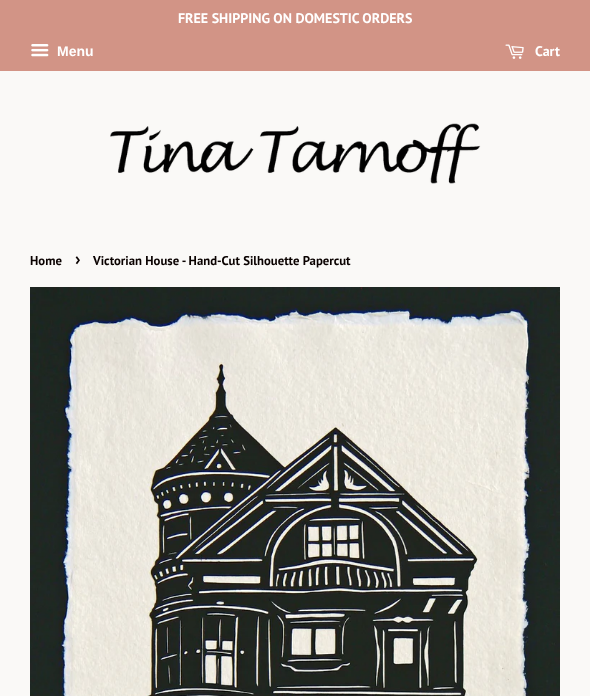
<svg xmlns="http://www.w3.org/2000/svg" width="590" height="696">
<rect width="100%" height="100%" fill="#faf9f7"/>
<rect width="590" height="71" fill="#d29486"/>
<text x="178" y="23" style="font-family:PT Sans;font-size:14px;font-weight:bold;fill:#fff">FREE SHIPPING ON DOMESTIC ORDERS</text>
<image x="31" y="44" width="18" height="13" href="media/1.png"/>
<text x="57" y="56" style="font-family:Liberation Sans;font-size:14px;font-weight:bold;fill:#fff">Menu</text>
<image x="505" y="44" width="19" height="15" href="media/2.png"/>
<text x="535" y="56" style="font-family:PT Sans;font-size:14px;font-weight:bold;fill:#fff">Cart</text>
<image x="110" y="123" width="371" height="61" href="media/3.png"/>
<text x="30" y="265" style="font-family:PT Sans;font-size:12.75px;font-weight:bold;fill:#0a0200">Home</text>
<text x="75" y="265" style="font-family:PT Sans;font-size:18px;font-weight:bold;fill:#0a0200">›</text>
<text x="93" y="265" style="font-family:PT Sans;font-size:12.75px;font-weight:bold;fill:#0a0200">Victorian House - Hand-Cut Silhouette Papercut</text>
<image x="30" y="287" width="530" height="409" href="media/4.png"/>
</svg>
